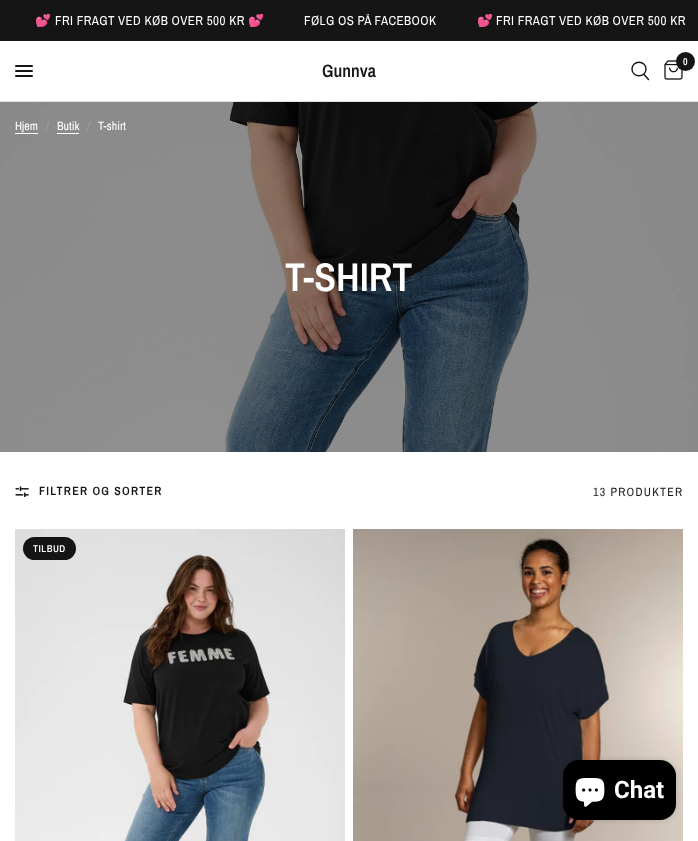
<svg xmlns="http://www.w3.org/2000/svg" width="698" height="841">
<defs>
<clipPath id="clip1"><rect y="14" width="698" height="13"/></clipPath>
</defs>
<rect width="100%" height="100%" fill="#fff"/>
<rect width="698" height="41" fill="#151515"/>
<g clip-path="url(#clip1)">
<text x="35" y="25" style="font-family:Noto Color Emoji;font-size:13px;letter-spacing:0.4px;fill:#fff">💕</text>
</g>
<text x="55" y="25" style="font-family:Archivo Narrow;font-size:13px;letter-spacing:0.4px;fill:#fff">FRI FRAGT VED KØB OVER 500 KR</text>
<g clip-path="url(#clip1)">
<text x="248" y="25" style="font-family:Noto Color Emoji;font-size:13px;letter-spacing:0.4px;fill:#fff">💕</text>
<text x="304" y="25" style="font-family:Archivo Narrow;font-size:13px;letter-spacing:0.4px;fill:#fff">FØLG OS PÅ FACEBOOK</text>
<text x="477" y="25" style="font-family:Noto Color Emoji;font-size:13px;letter-spacing:0.4px;fill:#fff">💕</text>
</g>
<text x="496" y="25" style="font-family:Archivo Narrow;font-size:13px;letter-spacing:0.4px;fill:#fff">FRI FRAGT VED KØB OVER 500 KR</text>
<rect y="101" width="698" height="1" fill="#e2e2e2"/>
<path d="M644 74.5l4.5 5m-2.5-10.5c0 9-14 9-14 0c0-9 14-9 14 0z" fill="none" stroke="#151515" stroke-width="1.4" stroke-linecap="round" stroke-linejoin="round"/>
<image x="664" y="60" width="19" height="20" href="media/1.png"/>
<circle cx="685.5" cy="61.5" r="9.5" fill="#151515"/>
<text x="683" y="65" style="font-family:Archivo Narrow;font-size:10px;font-weight:600;fill:#fff">0</text>
<rect x="15" y="65" width="18" height="2" rx="1" fill="#151515"/>
<rect x="15" y="70" width="18" height="2" rx="1" fill="#151515"/>
<rect x="15" y="75" width="18" height="2" rx="1" fill="#151515"/>
<text x="322" y="77" style="font-family:Archivo Narrow;font-size:18px;font-weight:600;fill:#151515">Gunnva</text>
<image x="0" y="102" width="698" height="350" href="media/2.png"/>
<text x="15" y="130" style="font-family:Archivo Narrow;font-size:12px;fill:#fff">Hjem</text>
<rect x="15" y="133" width="23" height="1" fill="#fff"/>
<text x="46" y="130" style="font-family:Archivo Narrow;font-size:12px;font-style:italic;fill:#a2a2a2">/</text>
<text x="57" y="130" style="font-family:Archivo Narrow;font-size:12px;fill:#fff">Butik</text>
<rect x="57" y="133" width="22" height="1" fill="#fff"/>
<text x="87" y="130" style="font-family:Archivo Narrow;font-size:12px;font-style:italic;fill:#a2a2a2">/</text>
<text x="98" y="130" style="font-family:Archivo Narrow;font-size:12px;fill:#fff">T-shirt</text>
<text x="285" y="291" style="font-family:Archivo Narrow;font-size:40px;font-weight:600;fill:#fff">T-SHIRT</text>
<image x="15" y="486" width="14" height="11" href="media/3.png"/>
<text x="39" y="495" style="font-family:Archivo Narrow;font-size:12px;font-weight:600;letter-spacing:1.25px;fill:#151515">FILTRER OG SORTER</text>
<text x="593" y="496" style="font-family:Archivo Narrow;font-size:12px;letter-spacing:1.25px;fill:#151515">13 PRODUKTER</text>
<image x="15" y="529" width="330" height="312" href="media/4.png"/>
<rect x="23" y="537" width="53" height="23" rx="11.5" fill="#151515"/>
<text x="33" y="552" style="font-family:Archivo Narrow;font-size:10px;font-weight:600;letter-spacing:0.5px;fill:#fff">TILBUD</text>
<image x="353" y="529" width="330" height="312" href="media/5.png"/>
<rect x="563" y="760" width="113" height="60" rx="16" fill="#00000026" filter="blur(2.5px)"/>
<rect x="563" y="760" width="113" height="60" rx="16" fill="#000"/>
<image x="575" y="778" width="30" height="29" href="media/6.png"/>
<text x="614" y="798" style="font-family:Roboto;font-size:24px;font-weight:bold;fill:#fff">Chat</text>
</svg>
